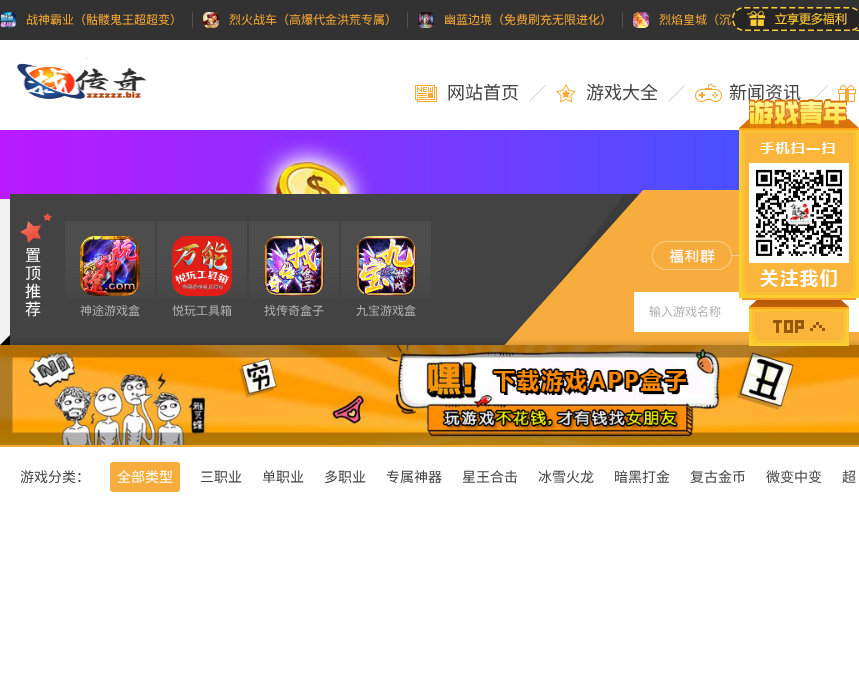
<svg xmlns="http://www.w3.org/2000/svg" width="859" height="695">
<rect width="100%" height="100%" fill="#fff"/>
<rect width="859" height="40" fill="#323232"/>
<image x="0" y="12" width="16" height="16" href="media/1.png"/>
<text x="26" y="24" style="font-family:Noto Sans CJK SC;font-size:12px;fill:#f8a933">战神霸业（骷髅鬼王超超变）</text>
<rect x="192" y="12" width="1" height="16" fill="#525252"/>
<image x="203" y="12" width="16" height="16" href="media/2.png"/>
<text x="229" y="24" style="font-family:Noto Sans CJK SC;font-size:12px;fill:#f8a933">烈火战车（高爆代金洪荒专属）</text>
<rect x="407" y="12" width="1" height="16" fill="#525252"/>
<image x="418" y="12" width="16" height="16" href="media/3.png"/>
<text x="444" y="24" style="font-family:Noto Sans CJK SC;font-size:12px;fill:#f8a933">幽蓝边境（免费刷充无限进化）</text>
<rect x="622" y="12" width="1" height="16" fill="#525252"/>
<image x="633" y="12" width="16" height="16" href="media/4.png"/>
<text x="659" y="24" style="font-family:Noto Sans CJK SC;font-size:12px;fill:#f8a933">烈焰皇城（沉</text>
<image x="732" y="7" width="127" height="25" href="media/5.png"/>
<image x="17" y="58" width="130" height="42" href="media/6.png"/>
<image x="415" y="85" width="22" height="17" href="media/7.png"/>
<text x="447" y="99" style="font-family:Noto Sans CJK SC;font-size:18px;fill:#434343">网站首页</text>
<image x="529" y="85" width="17" height="17" href="media/8.png"/>
<image x="556" y="84" width="20" height="19" href="media/9.png"/>
<text x="586" y="99" style="font-family:Noto Sans CJK SC;font-size:18px;fill:#434343">游戏大全</text>
<image x="668" y="85" width="17" height="17" href="media/8.png"/>
<image x="695" y="84" width="27" height="18" href="media/10.png"/>
<text x="729" y="99" style="font-family:Noto Sans CJK SC;font-size:18px;fill:#434343">新闻资讯</text>
<image x="813" y="85" width="15" height="15" href="media/11.png"/>
<image x="838" y="85" width="18" height="17" href="media/12.png"/>
<image x="0" y="130" width="739" height="215" href="media/13.png"/>
<image x="10" y="190" width="849" height="155" href="media/16.png"/>
<rect x="634" y="292" width="225" height="40" fill="#fff"/>
<image x="0" y="345" width="859" height="100" href="media/24.png"/>
<image x="739" y="98" width="120" height="248" href="media/14.png"/>
<image x="749" y="162" width="100" height="100" href="media/15.png"/>
<image x="20" y="213" width="32" height="30" href="media/17.png"/>
<text x="25" y="261" style="font-family:Noto Sans CJK SC;font-size:16px;letter-spacing:5px;fill:#fff">置</text>
<text x="25" y="279" style="font-family:Noto Sans CJK SC;font-size:16px;letter-spacing:5px;fill:#fff">顶</text>
<text x="25" y="297" style="font-family:Noto Sans CJK SC;font-size:16px;letter-spacing:5px;fill:#fff">推</text>
<text x="25" y="315" style="font-family:Noto Sans CJK SC;font-size:16px;letter-spacing:5px;fill:#fff">荐</text>
<image x="65" y="221" width="90" height="77" href="media/18.png"/>
<image x="80" y="236" width="60" height="60" href="media/19.png"/>
<text x="80" y="315" style="font-family:Noto Sans CJK SC;font-size:12px;fill:#b0b0b0">神途游戏盒</text>
<image x="157" y="221" width="90" height="77" href="media/18.png"/>
<image x="172" y="236" width="60" height="60" href="media/20.png"/>
<text x="172" y="315" style="font-family:Noto Sans CJK SC;font-size:12px;fill:#b0b0b0">悦玩工具箱</text>
<image x="249" y="221" width="90" height="77" href="media/18.png"/>
<image x="264" y="236" width="60" height="60" href="media/21.png"/>
<text x="264" y="315" style="font-family:Noto Sans CJK SC;font-size:12px;fill:#b0b0b0">找传奇盒子</text>
<image x="341" y="221" width="90" height="77" href="media/18.png"/>
<image x="356" y="236" width="60" height="60" href="media/22.png"/>
<text x="356" y="315" style="font-family:Noto Sans CJK SC;font-size:12px;fill:#b0b0b0">九宝游戏盒</text>
<text x="649" y="316" style="font-family:Noto Sans CJK SC;font-size:12px;fill:#b0b0b0">输入游戏名称</text>
<image x="0" y="335" width="10" height="10" href="media/23.png"/>
<rect y="445" width="859" height="2" fill="#f7a934"/>
<text x="20" y="482" style="font-family:Noto Sans CJK SC;font-size:14px;fill:#434343">游戏分类：</text>
<rect x="110" y="462" width="70" height="30" rx="3" fill="#f7ad3e"/>
<text x="117" y="482" style="font-family:Noto Sans CJK SC;font-size:14px;fill:#fff">全部类型</text>
<text x="200" y="482" style="font-family:Noto Sans CJK SC;font-size:14px;fill:#434343">三职业</text>
<text x="262" y="482" style="font-family:Noto Sans CJK SC;font-size:14px;fill:#434343">单职业</text>
<text x="324" y="482" style="font-family:Noto Sans CJK SC;font-size:14px;fill:#434343">多职业</text>
<text x="386" y="482" style="font-family:Noto Sans CJK SC;font-size:14px;fill:#434343">专属神器</text>
<text x="462" y="482" style="font-family:Noto Sans CJK SC;font-size:14px;fill:#434343">星王合击</text>
<text x="538" y="482" style="font-family:Noto Sans CJK SC;font-size:14px;fill:#434343">冰雪火龙</text>
<text x="614" y="482" style="font-family:Noto Sans CJK SC;font-size:14px;fill:#434343">暗黑打金</text>
<text x="690" y="482" style="font-family:Noto Sans CJK SC;font-size:14px;fill:#434343">复古金币</text>
<text x="766" y="482" style="font-family:Noto Sans CJK SC;font-size:14px;fill:#434343">微变中变</text>
<text x="842" y="482" style="font-family:Noto Sans CJK SC;font-size:14px;fill:#434343">超</text>
</svg>
